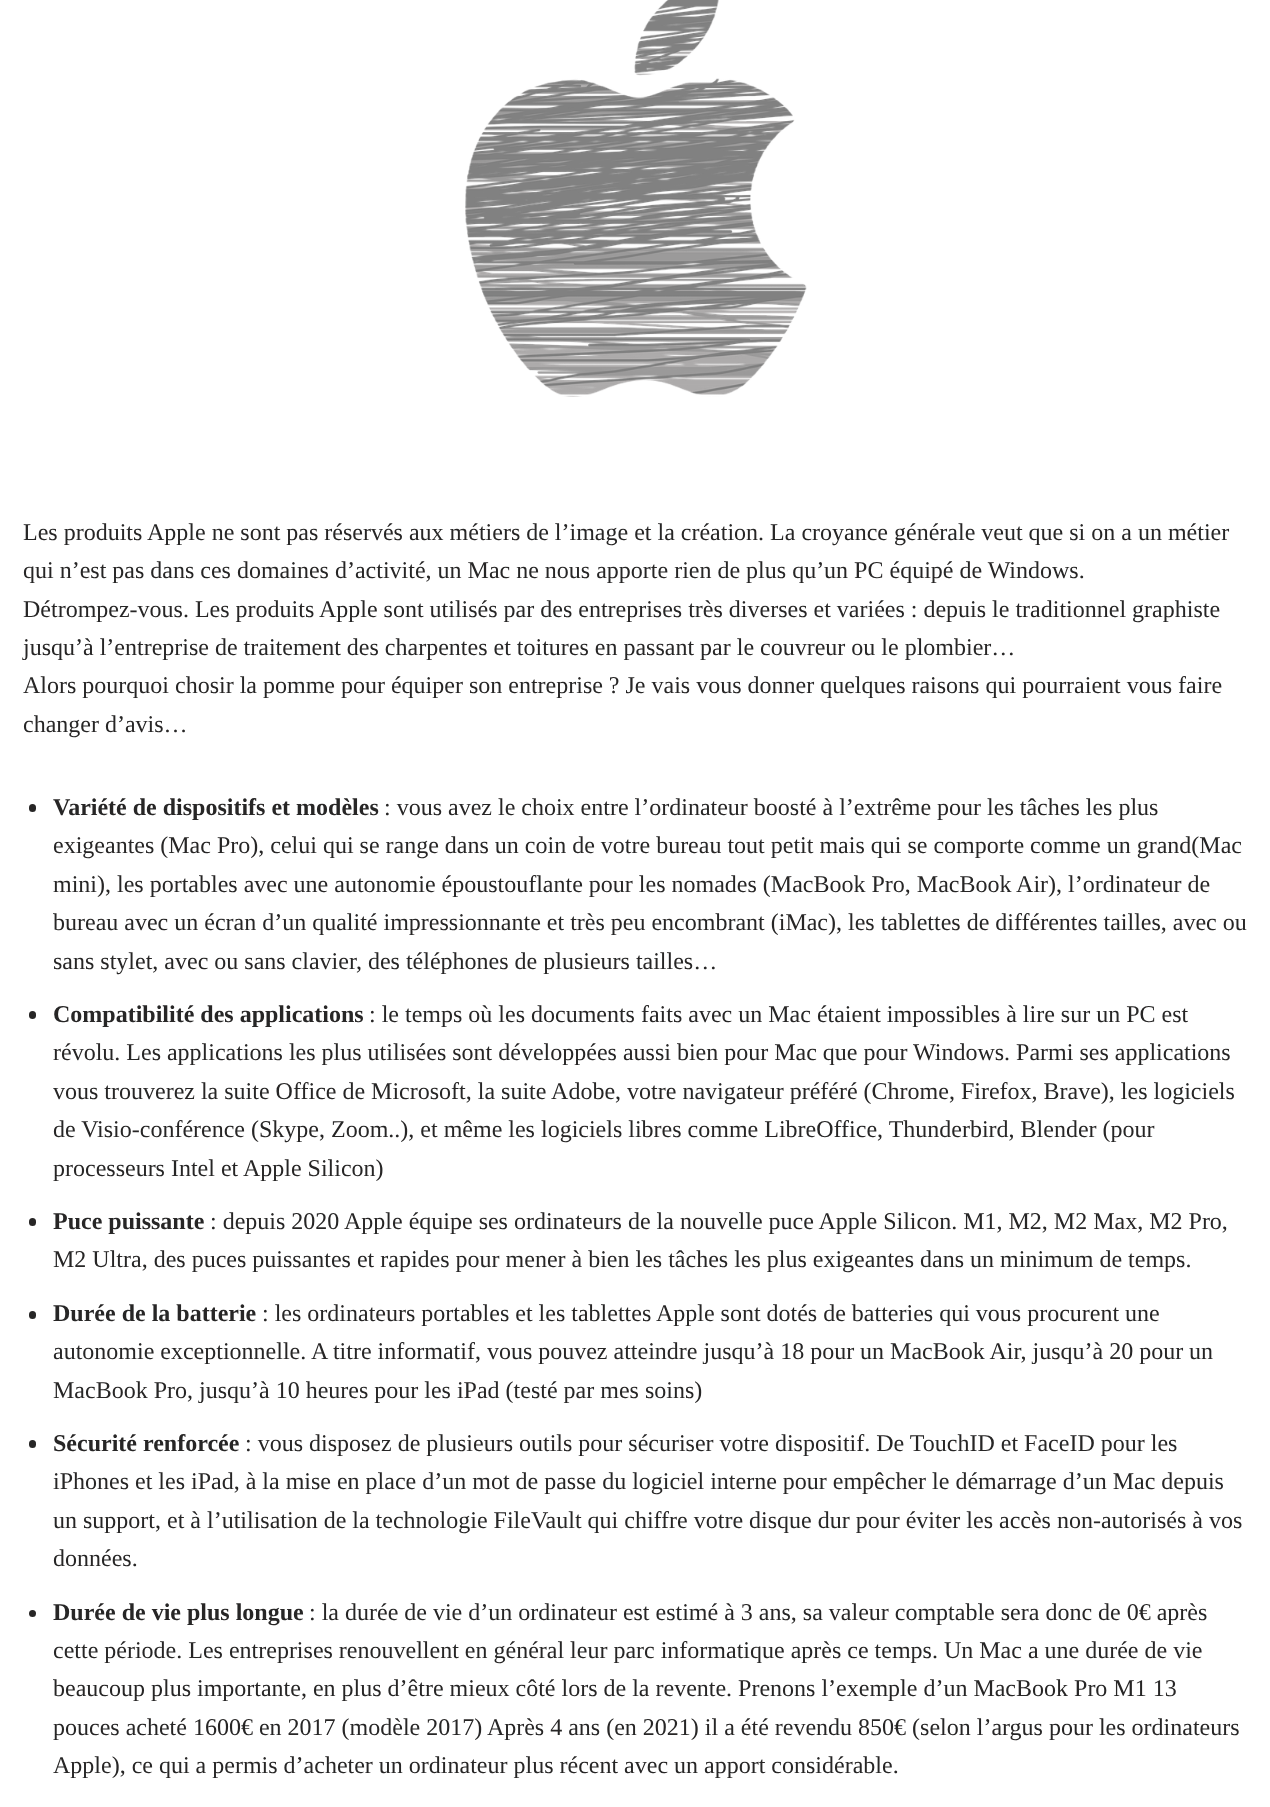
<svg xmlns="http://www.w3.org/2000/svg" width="1270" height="1807">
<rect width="100%" height="100%" fill="#fff"/>
<image x="465" y="0" width="342" height="397" href="media/1.png"/>
<text x="23" y="540" style="font-family:Liberation Serif;font-size:24px;fill:#272626">Les produits Apple ne sont pas réservés aux métiers de l’image et la création. La croyance générale veut que si on a un métier</text>
<text x="23" y="578" style="font-family:Liberation Serif;font-size:24px;fill:#272626">qui n’est pas dans ces domaines d’activité, un Mac ne nous apporte rien de plus qu’un PC équipé de Windows.</text>
<text x="23" y="617" style="font-family:Liberation Serif;font-size:24px;fill:#272626">Détrompez-vous. Les produits Apple sont utilisés par des entreprises très diverses et variées : depuis le traditionnel graphiste</text>
<text x="23" y="655" style="font-family:Liberation Serif;font-size:24px;fill:#272626">jusqu’à l’entreprise de traitement des charpentes et toitures en passant par le couvreur ou le plombier…</text>
<text x="23" y="693" style="font-family:Liberation Serif;font-size:24px;fill:#272626">Alors pourquoi chosir la pomme pour équiper son entreprise ? Je vais vous donner quelques raisons qui pourraient vous faire</text>
<text x="23" y="732" style="font-family:Liberation Serif;font-size:24px;fill:#272626">changer d’avis…</text>
<rect x="29" y="804" width="7" height="8" rx="3.5" fill="#272626"/>
<text x="53" y="815" style="font-family:Liberation Serif;font-size:24px;font-weight:bold;fill:#272626">Variété de dispositifs et modèles</text>
<text x="384" y="815" style="font-family:Liberation Serif;font-size:24px;fill:#272626">: vous avez le choix entre l’ordinateur boosté à l’extrême pour les tâches les plus</text>
<text x="53" y="853" style="font-family:Liberation Serif;font-size:24px;fill:#272626">exigeantes (Mac Pro), celui qui se range dans un coin de votre bureau tout petit mais qui se comporte comme un grand(Mac</text>
<text x="53" y="892" style="font-family:Liberation Serif;font-size:24px;fill:#272626">mini), les portables avec une autonomie époustouflante pour les nomades (MacBook Pro, MacBook Air), l’ordinateur de</text>
<text x="53" y="930" style="font-family:Liberation Serif;font-size:24px;fill:#272626">bureau avec un écran d’un qualité impressionnante et très peu encombrant (iMac), les tablettes de différentes tailles, avec ou</text>
<text x="53" y="969" style="font-family:Liberation Serif;font-size:24px;fill:#272626">sans stylet, avec ou sans clavier, des téléphones de plusieurs tailles…</text>
<rect x="29" y="1011" width="7" height="8" rx="3.5" fill="#272626"/>
<text x="53" y="1022" style="font-family:Liberation Serif;font-size:24px;font-weight:bold;fill:#272626">Compatibilité des applications</text>
<text x="369" y="1022" style="font-family:Liberation Serif;font-size:24px;fill:#272626">: le temps où les documents faits avec un Mac étaient impossibles à lire sur un PC est</text>
<text x="53" y="1060" style="font-family:Liberation Serif;font-size:24px;fill:#272626">révolu. Les applications les plus utilisées sont développées aussi bien pour Mac que pour Windows. Parmi ses applications</text>
<text x="53" y="1099" style="font-family:Liberation Serif;font-size:24px;fill:#272626">vous trouverez la suite Office de Microsoft, la suite Adobe, votre navigateur préféré (Chrome, Firefox, Brave), les logiciels</text>
<text x="53" y="1137" style="font-family:Liberation Serif;font-size:24px;fill:#272626">de Visio-conférence (Skype, Zoom..), et même les logiciels libres comme LibreOffice, Thunderbird, Blender (pour</text>
<text x="53" y="1176" style="font-family:Liberation Serif;font-size:24px;fill:#272626">processeurs Intel et Apple Silicon)</text>
<rect x="29" y="1218" width="7" height="8" rx="3.5" fill="#272626"/>
<text x="53" y="1229" style="font-family:Liberation Serif;font-size:24px;font-weight:bold;fill:#272626">Puce puissante</text>
<text x="210" y="1229" style="font-family:Liberation Serif;font-size:24px;fill:#272626">: depuis 2020 Apple équipe ses ordinateurs de la nouvelle puce Apple Silicon. M1, M2, M2 Max, M2 Pro,</text>
<text x="53" y="1267" style="font-family:Liberation Serif;font-size:24px;fill:#272626">M2 Ultra, des puces puissantes et rapides pour mener à bien les tâches les plus exigeantes dans un minimum de temps.</text>
<rect x="29" y="1311" width="7" height="8" rx="3.5" fill="#272626"/>
<text x="53" y="1321" style="font-family:Liberation Serif;font-size:24px;font-weight:bold;fill:#272626">Durée de la batterie</text>
<text x="262" y="1321" style="font-family:Liberation Serif;font-size:24px;fill:#272626">: les ordinateurs portables et les tablettes Apple sont dotés de batteries qui vous procurent une</text>
<text x="53" y="1359" style="font-family:Liberation Serif;font-size:24px;fill:#272626">autonomie exceptionnelle. A titre informatif, vous pouvez atteindre jusqu’à 18 pour un MacBook Air, jusqu’à 20 pour un</text>
<text x="53" y="1398" style="font-family:Liberation Serif;font-size:24px;fill:#272626">MacBook Pro, jusqu’à 10 heures pour les iPad (testé par mes soins)</text>
<rect x="29" y="1440" width="7" height="8" rx="3.5" fill="#272626"/>
<text x="53" y="1451" style="font-family:Liberation Serif;font-size:24px;font-weight:bold;fill:#272626">Sécurité renforcée</text>
<text x="245" y="1451" style="font-family:Liberation Serif;font-size:24px;fill:#272626">: vous disposez de plusieurs outils pour sécuriser votre dispositif. De TouchID et FaceID pour les</text>
<text x="53" y="1489" style="font-family:Liberation Serif;font-size:24px;fill:#272626">iPhones et les iPad, à la mise en place d’un mot de passe du logiciel interne pour empêcher le démarrage d’un Mac depuis</text>
<text x="53" y="1528" style="font-family:Liberation Serif;font-size:24px;fill:#272626">un support, et à l’utilisation de la technologie FileVault qui chiffre votre disque dur pour éviter les accès non-autorisés à vos</text>
<text x="53" y="1566" style="font-family:Liberation Serif;font-size:24px;fill:#272626">données.</text>
<circle cx="32.5" cy="1613.5" r="3.5" fill="#272626"/>
<text x="53" y="1620" style="font-family:Liberation Serif;font-size:24px;font-weight:bold;fill:#272626">Durée de vie plus longue</text>
<text x="309" y="1620" style="font-family:Liberation Serif;font-size:24px;fill:#272626">: la durée de vie d’un ordinateur est estimé à 3 ans, sa valeur comptable sera donc de 0€ après</text>
<text x="53" y="1658" style="font-family:Liberation Serif;font-size:24px;fill:#272626">cette période. Les entreprises renouvellent en général leur parc informatique après ce temps. Un Mac a une durée de vie</text>
<text x="53" y="1696" style="font-family:Liberation Serif;font-size:24px;fill:#272626">beaucoup plus importante, en plus d’être mieux côté lors de la revente. Prenons l’exemple d’un MacBook Pro M1 13</text>
<text x="53" y="1735" style="font-family:Liberation Serif;font-size:24px;fill:#272626">pouces acheté 1600€ en 2017 (modèle 2017) Après 4 ans (en 2021) il a été revendu 850€ (selon l’argus pour les ordinateurs</text>
<text x="53" y="1773" style="font-family:Liberation Serif;font-size:24px;fill:#272626">Apple), ce qui a permis d’acheter un ordinateur plus récent avec un apport considérable.</text>
</svg>
